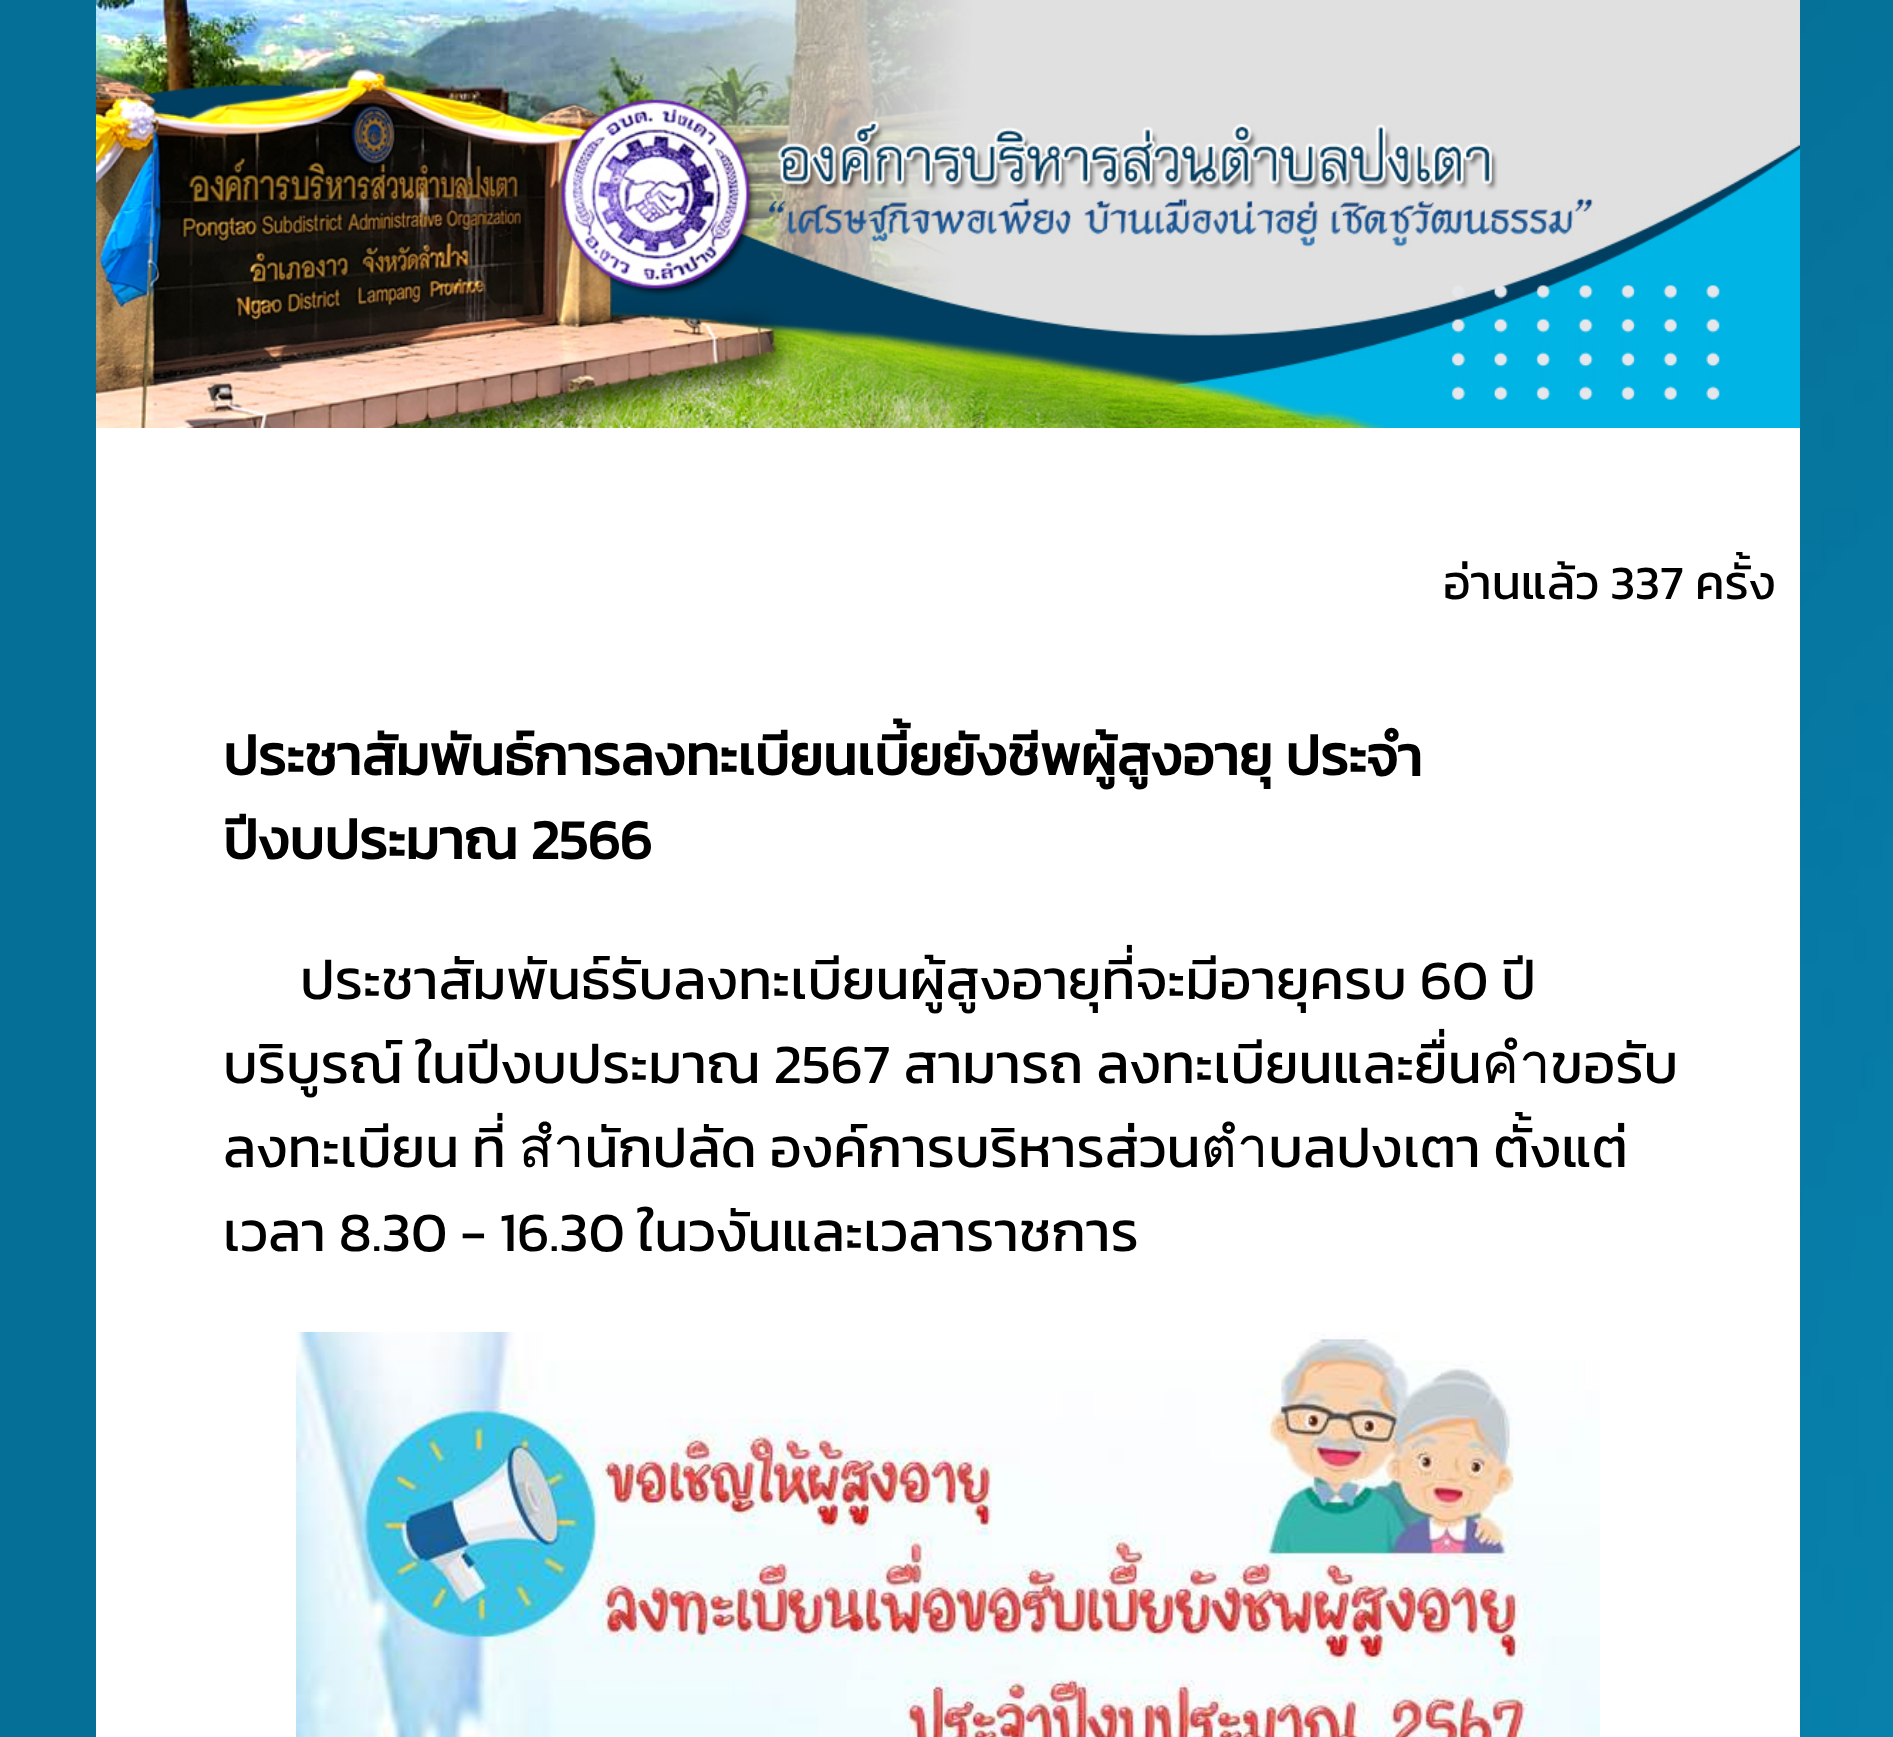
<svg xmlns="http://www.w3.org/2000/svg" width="1893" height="1737">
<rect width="100%" height="100%" fill="#fff"/>
<image x="0" y="0" width="1893" height="1737" href="media/1.png"/>
<rect x="96" y="428" width="1704" height="1309" fill="#fff"/>
<image x="96" y="0" width="1704" height="428" href="media/2.png"/>
<text x="1443" y="599" style="font-family:Kanit;font-size:48px;fill:#000">อ่านแล้ว 337 ครั้ง</text>
<text x="223" y="775" style="font-family:Kanit;font-size:56px;font-weight:bold;fill:#000">ประชาสัมพันธ์การลงทะเบียนเบี้ยยังชีพผู้สูงอายุ ประจำ</text>
<text x="223" y="859" style="font-family:Kanit;font-size:56px;font-weight:bold;fill:#000">ปีงบประมาณ 2566</text>
<text x="300" y="999" style="font-family:Kanit;font-size:56px;fill:#000">ประชาสัมพันธ์รับลงทะเบียนผู้สูงอายุที่จะมีอายุครบ 60 ปี</text>
<text x="223" y="1083" style="font-family:Kanit;font-size:56px;fill:#000">บริบูรณ์ ในปีงบประมาณ 2567 สามารถ ลงทะเบียนและยื่นคำขอรับ</text>
<text x="223" y="1167" style="font-family:Kanit;font-size:56px;fill:#000">ลงทะเบียน ที่ สำนักปลัด องค์การบริหารส่วนตำบลปงเตา ตั้งแต่</text>
<text x="223" y="1251" style="font-family:Kanit;font-size:56px;fill:#000">เวลา 8.30 - 16.30 ในวงันและเวลาราชการ</text>
<image x="296" y="1332" width="1304" height="405" href="media/3.png"/>
</svg>
